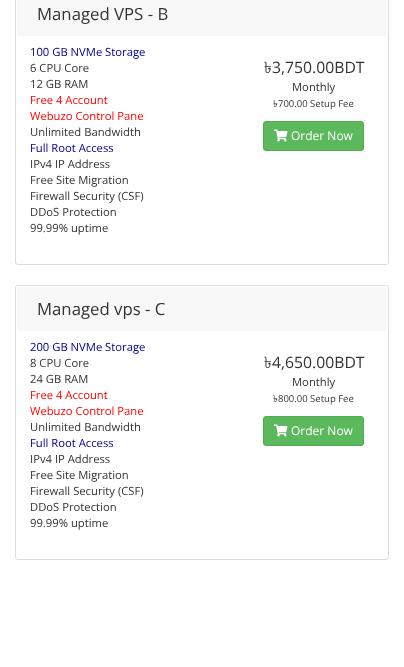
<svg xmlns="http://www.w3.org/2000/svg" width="404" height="667">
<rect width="100%" height="100%" fill="#fff"/>
<rect x="15.5" y="-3.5" width="373" height="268" rx="2.5" fill="none" stroke="#ddd"/>
<rect x="17" width="370" height="36" fill="#f8f8f8"/>
<text x="37" y="20" style="font-family:Open Sans;font-size:16.75px;fill:#333">Managed VPS - B</text>
<text x="30" y="56" style="font-family:Open Sans;font-size:11.25px;fill:#00008b">100 GB NVMe Storage</text>
<text x="30" y="72" style="font-family:Open Sans;font-size:11.25px;fill:#333">6 CPU Core</text>
<text x="30" y="88" style="font-family:Open Sans;font-size:11.25px;fill:#333">12 GB RAM</text>
<text x="30" y="104" style="font-family:Open Sans;font-size:11.25px;fill:#f00">Free 4 Account</text>
<text x="30" y="120" style="font-family:Open Sans;font-size:11.25px;fill:#f00">Webuzo Control Pane</text>
<text x="30" y="136" style="font-family:Open Sans;font-size:11.25px;fill:#333">Unlimited Bandwidth</text>
<text x="30" y="152" style="font-family:Open Sans;font-size:11.25px;fill:#00008b">Full Root Access</text>
<text x="30" y="168" style="font-family:Open Sans;font-size:11.25px;fill:#333">IPv4 IP Address</text>
<text x="30" y="184" style="font-family:Open Sans;font-size:11.25px;fill:#333">Free Site Migration</text>
<text x="30" y="200" style="font-family:Open Sans;font-size:11.25px;fill:#333">Firewall Security (CSF)</text>
<text x="30" y="216" style="font-family:Open Sans;font-size:11.25px;fill:#333">DDoS Protection</text>
<text x="30" y="232" style="font-family:Open Sans;font-size:11.25px;fill:#333">99.99% uptime</text>
<text x="264" y="73" style="font-family:Lohit Bengali;font-size:15.75px;fill:#333">৳</text>
<text x="272" y="73" style="font-family:Open Sans;font-size:15.75px;fill:#333">3,750.00BDT</text>
<text x="292" y="91" style="font-family:Open Sans;font-size:11.25px;fill:#333">Monthly</text>
<text x="273" y="107" style="font-family:Lohit Bengali;font-size:9.5px;fill:#333">৳</text>
<text x="278" y="107" style="font-family:Open Sans;font-size:9.5px;fill:#333">700.00 Setup Fee</text>
<rect x="263.5" y="121.5" width="100" height="29" rx="2.5" fill="#5cb85c" stroke="#4cae4c"/>
<image x="274" y="129" width="14" height="13" href="media/1.png"/>
<text x="291" y="140" style="font-family:Open Sans;font-size:12px;fill:#fff">Order Now</text>
<rect x="15.5" y="285.5" width="373" height="274" rx="2.5" fill="none" stroke="#ddd"/>
<path d="M20 287h364c1.5 0 3 1.5 3 3v41h-370v-41c0-1.5 1.5-3 3-3z" fill="#f8f8f8"/>
<text x="37" y="315" style="font-family:Open Sans;font-size:16.75px;fill:#333">Managed vps - C</text>
<text x="30" y="351" style="font-family:Open Sans;font-size:11.25px;fill:#00008b">200 GB NVMe Storage</text>
<text x="30" y="367" style="font-family:Open Sans;font-size:11.25px;fill:#333">8 CPU Core</text>
<text x="30" y="383" style="font-family:Open Sans;font-size:11.25px;fill:#333">24 GB RAM</text>
<text x="30" y="399" style="font-family:Open Sans;font-size:11.25px;fill:#f00">Free 4 Account</text>
<text x="30" y="415" style="font-family:Open Sans;font-size:11.25px;fill:#f00">Webuzo Control Pane</text>
<text x="30" y="431" style="font-family:Open Sans;font-size:11.25px;fill:#333">Unlimited Bandwidth</text>
<text x="30" y="447" style="font-family:Open Sans;font-size:11.25px;fill:#00008b">Full Root Access</text>
<text x="30" y="463" style="font-family:Open Sans;font-size:11.25px;fill:#333">IPv4 IP Address</text>
<text x="30" y="479" style="font-family:Open Sans;font-size:11.25px;fill:#333">Free Site Migration</text>
<text x="30" y="495" style="font-family:Open Sans;font-size:11.25px;fill:#333">Firewall Security (CSF)</text>
<text x="30" y="511" style="font-family:Open Sans;font-size:11.25px;fill:#333">DDoS Protection</text>
<text x="30" y="527" style="font-family:Open Sans;font-size:11.25px;fill:#333">99.99% uptime</text>
<text x="264" y="368" style="font-family:Lohit Bengali;font-size:15.75px;fill:#333">৳</text>
<text x="272" y="368" style="font-family:Open Sans;font-size:15.75px;fill:#333">4,650.00BDT</text>
<text x="292" y="386" style="font-family:Open Sans;font-size:11.25px;fill:#333">Monthly</text>
<text x="273" y="402" style="font-family:Lohit Bengali;font-size:9.5px;fill:#333">৳</text>
<text x="278" y="402" style="font-family:Open Sans;font-size:9.5px;fill:#333">800.00 Setup Fee</text>
<rect x="263.5" y="416.5" width="100" height="29" rx="2.5" fill="#5cb85c" stroke="#4cae4c"/>
<image x="274" y="424" width="14" height="13" href="media/1.png"/>
<text x="291" y="435" style="font-family:Open Sans;font-size:12px;fill:#fff">Order Now</text>
</svg>
